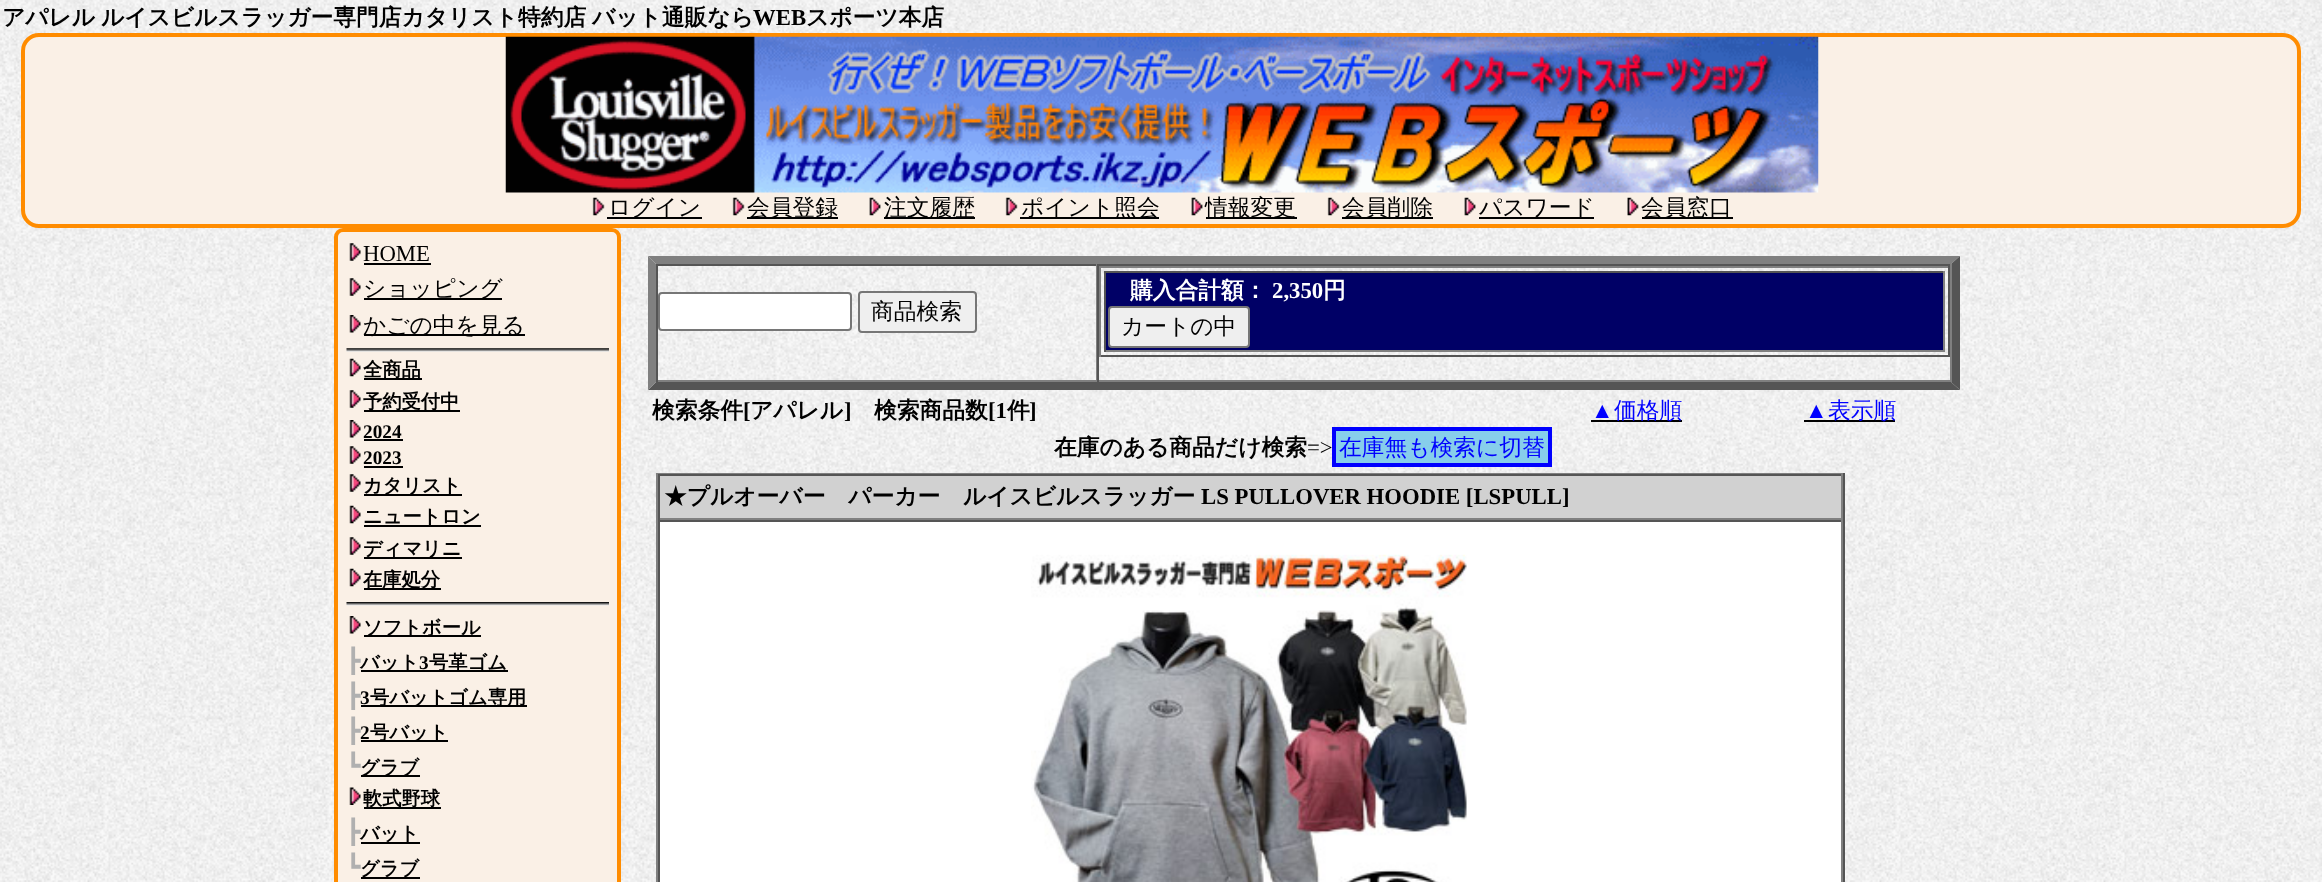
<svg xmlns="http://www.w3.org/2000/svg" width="2322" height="882">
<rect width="100%" height="100%" fill="#fff"/>
<image x="0" y="0" width="2322" height="882" href="media/1.png"/>
<text x="2" y="25" word-spacing="-1" style="font-family:WenQuanYi Zen Hei;font-size:22.75px;font-weight:bold;fill:#000">アパレル ルイスビルスラッガー専門店カタリスト特約店 バット通販なら</text>
<text x="753" y="25" style="font-family:Liberation Serif;font-size:22.75px;font-weight:bold;fill:#000">WEB</text>
<text x="806" y="25" style="font-family:WenQuanYi Zen Hei;font-size:22.75px;font-weight:bold;fill:#000">スポーツ本店</text>
<rect x="23" y="35" width="2276" height="191" rx="16" fill="#faf0e6" stroke="#ff8c00" stroke-width="4"/>
<image x="505" y="36" width="1314" height="157" href="media/2.png"/>
<image x="592" y="197" width="13" height="19" href="media/3.png"/>
<rect x="607" y="217" width="95" height="2" fill="#000"/>
<text x="608" y="215" style="font-family:WenQuanYi Zen Hei;font-size:22.75px;font-weight:500;fill:#000">ログイン</text>
<image x="732" y="197" width="13" height="19" href="media/4.png"/>
<rect x="747" y="217" width="91" height="2" fill="#000"/>
<text x="747" y="215" style="font-family:WenQuanYi Zen Hei;font-size:22.75px;font-weight:500;fill:#000">会員登録</text>
<image x="869" y="197" width="12" height="19" href="media/5.png"/>
<rect x="884" y="217" width="91" height="2" fill="#000"/>
<text x="884" y="215" style="font-family:WenQuanYi Zen Hei;font-size:22.75px;font-weight:500;fill:#000">注文履歴</text>
<image x="1005" y="197" width="13" height="19" href="media/4.png"/>
<rect x="1020" y="217" width="139" height="2" fill="#000"/>
<text x="1021" y="215" style="font-family:WenQuanYi Zen Hei;font-size:22.75px;font-weight:500;fill:#000">ポイント照会</text>
<image x="1191" y="197" width="12" height="19" href="media/5.png"/>
<rect x="1206" y="217" width="91" height="2" fill="#000"/>
<text x="1205" y="215" style="font-family:WenQuanYi Zen Hei;font-size:22.75px;font-weight:500;fill:#000">情報変更</text>
<image x="1327" y="197" width="13" height="19" href="media/3.png"/>
<rect x="1342" y="217" width="91" height="2" fill="#000"/>
<text x="1342" y="215" style="font-family:WenQuanYi Zen Hei;font-size:22.75px;font-weight:500;fill:#000">会員削除</text>
<image x="1464" y="197" width="12" height="19" href="media/5.png"/>
<rect x="1479" y="217" width="115" height="2" fill="#000"/>
<text x="1479" y="215" style="font-family:WenQuanYi Zen Hei;font-size:22.75px;font-weight:500;fill:#000">パスワード</text>
<image x="1627" y="197" width="12" height="19" href="media/6.png"/>
<rect x="1642" y="217" width="91" height="2" fill="#000"/>
<text x="1641" y="215" style="font-family:WenQuanYi Zen Hei;font-size:22.75px;font-weight:500;fill:#000">会員窓口</text>
<rect x="336" y="230" width="283" height="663" rx="7" fill="#faf0e6" stroke="#ff8c00" stroke-width="4"/>
<image x="349" y="243" width="12" height="18" href="media/7.png"/>
<text x="363" y="261" style="font-family:Liberation Serif;font-size:22.75px;fill:#000">HOME</text>
<rect x="364" y="263" width="67" height="2" fill="#000"/>
<image x="349" y="278" width="12" height="18" href="media/7.png"/>
<rect x="364" y="298" width="138" height="2" fill="#000"/>
<text x="363" y="296" style="font-family:WenQuanYi Zen Hei;font-size:22.75px;font-weight:500;fill:#000">ショッピング</text>
<image x="349" y="315" width="12" height="18" href="media/8.png"/>
<rect x="364" y="334" width="161" height="2" fill="#000"/>
<text x="363" y="333" style="font-family:WenQuanYi Zen Hei;font-size:22.75px;font-weight:500;fill:#000">かごの中を見る</text>
<image x="346" y="348" width="263" height="4" href="media/9.png"/>
<image x="349" y="358" width="12" height="19" href="media/10.png"/>
<rect x="364" y="378" width="58" height="2" fill="#000"/>
<text x="363" y="376" style="font-family:WenQuanYi Zen Hei;font-size:19.25px;font-weight:bold;fill:#000">全商品</text>
<image x="349" y="390" width="12" height="18" href="media/7.png"/>
<rect x="364" y="410" width="96" height="2" fill="#000"/>
<text x="363" y="408" style="font-family:WenQuanYi Zen Hei;font-size:19.25px;font-weight:bold;fill:#000">予約受付中</text>
<image x="349" y="420" width="12" height="18" href="media/8.png"/>
<text x="363" y="438" style="font-family:Liberation Serif;font-size:19.25px;font-weight:bold;fill:#000">2024</text>
<rect x="364" y="439" width="39" height="2" fill="#000"/>
<image x="349" y="446" width="12" height="18" href="media/7.png"/>
<text x="363" y="464" style="font-family:Liberation Serif;font-size:19.25px;font-weight:bold;fill:#000">2023</text>
<rect x="364" y="466" width="39" height="2" fill="#000"/>
<image x="349" y="474" width="12" height="18" href="media/7.png"/>
<rect x="364" y="494" width="98" height="2" fill="#000"/>
<text x="363" y="492" style="font-family:WenQuanYi Zen Hei;font-size:19.25px;font-weight:bold;fill:#000">カタリスト</text>
<image x="349" y="505" width="12" height="19" href="media/10.png"/>
<rect x="364" y="525" width="117" height="2" fill="#000"/>
<text x="363" y="523" style="font-family:WenQuanYi Zen Hei;font-size:19.25px;font-weight:bold;fill:#000">ニュートロン</text>
<image x="349" y="537" width="12" height="18" href="media/7.png"/>
<rect x="364" y="557" width="98" height="2" fill="#000"/>
<text x="363" y="555" style="font-family:WenQuanYi Zen Hei;font-size:19.25px;font-weight:bold;fill:#000">ディマリニ</text>
<image x="349" y="568" width="12" height="19" href="media/10.png"/>
<rect x="364" y="588" width="77" height="2" fill="#000"/>
<text x="363" y="586" style="font-family:WenQuanYi Zen Hei;font-size:19.25px;font-weight:bold;fill:#000">在庫処分</text>
<image x="346" y="602" width="263" height="4" href="media/11.png"/>
<image x="349" y="616" width="12" height="18" href="media/8.png"/>
<rect x="364" y="635" width="117" height="2" fill="#000"/>
<text x="363" y="634" style="font-family:WenQuanYi Zen Hei;font-size:19.25px;font-weight:bold;fill:#000">ソフトボール</text>
<text x="346" y="669" style="font-family:DejaVu Sans;font-size:24px;fill:#b0b0b0">┣</text>
<rect x="361" y="670" width="147" height="2" fill="#000"/>
<text x="360" y="669" style="font-family:WenQuanYi Zen Hei;font-size:19.25px;font-weight:bold;fill:#000">バット</text>
<text x="419" y="669" style="font-family:Liberation Serif;font-size:19.25px;font-weight:bold;fill:#000">3</text>
<text x="429" y="669" style="font-family:WenQuanYi Zen Hei;font-size:19.25px;font-weight:bold;fill:#000">号革ゴム</text>
<text x="346" y="704" style="font-family:DejaVu Sans;font-size:24px;fill:#b0b0b0">┣</text>
<text x="360" y="704" style="font-family:Liberation Serif;font-size:19.25px;font-weight:bold;fill:#000">3</text>
<rect x="361" y="705" width="166" height="2" fill="#000"/>
<text x="370" y="704" style="font-family:WenQuanYi Zen Hei;font-size:19.25px;font-weight:bold;fill:#000">号バットゴム専用</text>
<text x="346" y="739" style="font-family:DejaVu Sans;font-size:24px;fill:#b0b0b0">┣</text>
<text x="360" y="739" style="font-family:Liberation Serif;font-size:19.25px;font-weight:bold;fill:#000">2</text>
<rect x="361" y="740" width="87" height="2" fill="#000"/>
<text x="370" y="739" style="font-family:WenQuanYi Zen Hei;font-size:19.25px;font-weight:bold;fill:#000">号バット</text>
<text x="346" y="774" style="font-family:DejaVu Sans;font-size:24px;fill:#b0b0b0">┗</text>
<rect x="361" y="775" width="59" height="2" fill="#000"/>
<text x="360" y="774" style="font-family:WenQuanYi Zen Hei;font-size:19.25px;font-weight:bold;fill:#000">グラブ</text>
<image x="349" y="787" width="12" height="18" href="media/12.png"/>
<rect x="364" y="807" width="77" height="2" fill="#000"/>
<text x="363" y="805" style="font-family:WenQuanYi Zen Hei;font-size:19.25px;font-weight:bold;fill:#000">軟式野球</text>
<text x="346" y="840" style="font-family:DejaVu Sans;font-size:24px;fill:#b0b0b0">┣</text>
<rect x="361" y="842" width="59" height="2" fill="#000"/>
<text x="360" y="840" style="font-family:WenQuanYi Zen Hei;font-size:19.25px;font-weight:bold;fill:#000">バット</text>
<text x="346" y="875" style="font-family:DejaVu Sans;font-size:24px;fill:#b0b0b0">┗</text>
<rect x="361" y="877" width="59" height="2" fill="#000"/>
<text x="360" y="875" style="font-family:WenQuanYi Zen Hei;font-size:19.25px;font-weight:bold;fill:#000">グラブ</text>
<path d="M648 256h1312l-9 8h-1295z" fill="#808080"/>
<path d="M1960 256v134l-9-8v-118z" fill="#555"/>
<path d="M1960 390h-1312l8-8h1295z" fill="#555"/>
<path d="M648 390v-134l8 8v118z" fill="#808080"/>
<rect x="656" y="264" width="1295" height="2" fill="#555"/>
<rect x="1096" y="264" width="1" height="118" fill="#808080"/>
<rect x="656" y="380" width="441" height="2" fill="#808080"/>
<rect x="656" y="264" width="2" height="118" fill="#555"/>
<rect x="659" y="293" width="192" height="37" rx="3" fill="#fff" stroke="#767676" stroke-width="2"/>
<rect x="859" y="292" width="117" height="40" rx="3" fill="#efefef" stroke="#767676" stroke-width="2"/>
<text x="871" y="319" style="font-family:WenQuanYi Zen Hei;font-size:22.75px;font-weight:500;fill:#000">商品検索</text>
<rect x="1950" y="264" width="2" height="118" fill="#808080"/>
<rect x="1097" y="380" width="854" height="2" fill="#808080"/>
<rect x="1097" y="264" width="2" height="118" fill="#555"/>
<rect x="1099" y="266" width="851" height="2" fill="#808080"/>
<rect x="1948" y="266" width="2" height="91" fill="#555"/>
<rect x="1099" y="355" width="851" height="2" fill="#555"/>
<rect x="1099" y="266" width="2" height="91" fill="#808080"/>
<rect x="1106" y="273" width="837" height="77" fill="#006"/>
<rect x="1104" y="271" width="840" height="2" fill="#555"/>
<rect x="1943" y="271" width="2" height="81" fill="#808080"/>
<rect x="1104" y="350" width="840" height="2" fill="#808080"/>
<rect x="1104" y="271" width="2" height="81" fill="#555"/>
<text x="1130" y="298" style="font-family:WenQuanYi Zen Hei;font-size:22.75px;font-weight:bold;fill:#fff">購入合計額：</text>
<text x="1272" y="298" style="font-family:Liberation Serif;font-size:22.75px;font-weight:bold;fill:#fff">2,350</text>
<text x="1323" y="298" style="font-family:WenQuanYi Zen Hei;font-size:22.75px;font-weight:bold;fill:#fff">円</text>
<rect x="1109" y="307" width="140" height="40" rx="3" fill="#efefef" stroke="#767676" stroke-width="2"/>
<text x="1121" y="334" style="font-family:WenQuanYi Zen Hei;font-size:22.75px;font-weight:500;fill:#000">カートの中</text>
<text x="652" y="418" style="font-family:WenQuanYi Zen Hei;font-size:22.75px;font-weight:bold;fill:#000">検索条件</text>
<text x="743" y="418" style="font-family:Liberation Serif;font-size:22.75px;font-weight:bold;fill:#000">[</text>
<text x="750" y="418" style="font-family:WenQuanYi Zen Hei;font-size:22.75px;font-weight:bold;fill:#000">アパレル</text>
<text x="844" y="418" style="font-family:Liberation Serif;font-size:22.75px;font-weight:bold;fill:#000">]</text>
<text x="874" y="418" style="font-family:WenQuanYi Zen Hei;font-size:22.75px;font-weight:bold;fill:#000">検索商品数</text>
<text x="988" y="418" style="font-family:Liberation Serif;font-size:22.75px;font-weight:bold;fill:#000">[1</text>
<text x="1007" y="418" style="font-family:WenQuanYi Zen Hei;font-size:22.75px;font-weight:bold;fill:#000">件</text>
<text x="1029" y="418" style="font-family:Liberation Serif;font-size:22.75px;font-weight:bold;fill:#000">]</text>
<text x="1591" y="418" style="font-family:Liberation Serif;font-size:22.75px;fill:#00f">▲</text>
<rect x="1591" y="420" width="91" height="2" fill="#000"/>
<text x="1614" y="418" style="font-family:WenQuanYi Zen Hei;font-size:22.75px;font-weight:500;fill:#00f">価格順</text>
<text x="1805" y="418" style="font-family:Liberation Serif;font-size:22.75px;fill:#00f">▲</text>
<rect x="1804" y="420" width="91" height="2" fill="#000"/>
<text x="1828" y="418" style="font-family:WenQuanYi Zen Hei;font-size:22.75px;font-weight:500;fill:#00f">表示順</text>
<text x="1054" y="455" style="font-family:WenQuanYi Zen Hei;font-size:22.75px;font-weight:bold;fill:#000">在庫のある商品だけ検索</text>
<text x="1307" y="455" style="font-family:Liberation Serif;font-size:22.75px;fill:#000">=&gt;</text>
<rect x="1334" y="429" width="216" height="36" fill="#87ceeb" stroke="#00f" stroke-width="4"/>
<text x="1339" y="455" style="font-family:WenQuanYi Zen Hei;font-size:22.75px;font-weight:500;fill:#00f">在庫無も検索に切替</text>
<rect x="656" y="473" width="1189" height="1" fill="#808080"/>
<rect x="1843" y="473" width="2" height="409" fill="#555"/>
<rect x="656" y="473" width="2" height="409" fill="#808080"/>
<rect x="660" y="476" width="1181" height="42" fill="#d1d1d1"/>
<rect x="658" y="474" width="1185" height="2" fill="#555"/>
<rect x="1841" y="474" width="2" height="46" fill="#808080"/>
<rect x="658" y="518" width="1185" height="2" fill="#808080"/>
<rect x="658" y="474" width="2" height="46" fill="#555"/>
<text x="664" y="504" style="font-family:WenQuanYi Zen Hei;font-size:22.75px;font-weight:bold;fill:#000">★プルオーバー　パーカー　ルイスビルスラッガー</text>
<text x="1201" y="504" style="font-family:Liberation Serif;font-size:22.75px;font-weight:bold;fill:#000">LS PULLOVER HOODIE [LSPULL]</text>
<rect x="660" y="522" width="1181" height="360" fill="#fff"/>
<rect x="658" y="520" width="1185" height="2" fill="#555"/>
<rect x="1841" y="520" width="2" height="362" fill="#808080"/>
<rect x="658" y="520" width="2" height="362" fill="#555"/>
<image x="1031" y="554" width="436" height="328" href="media/13.png"/>
</svg>
